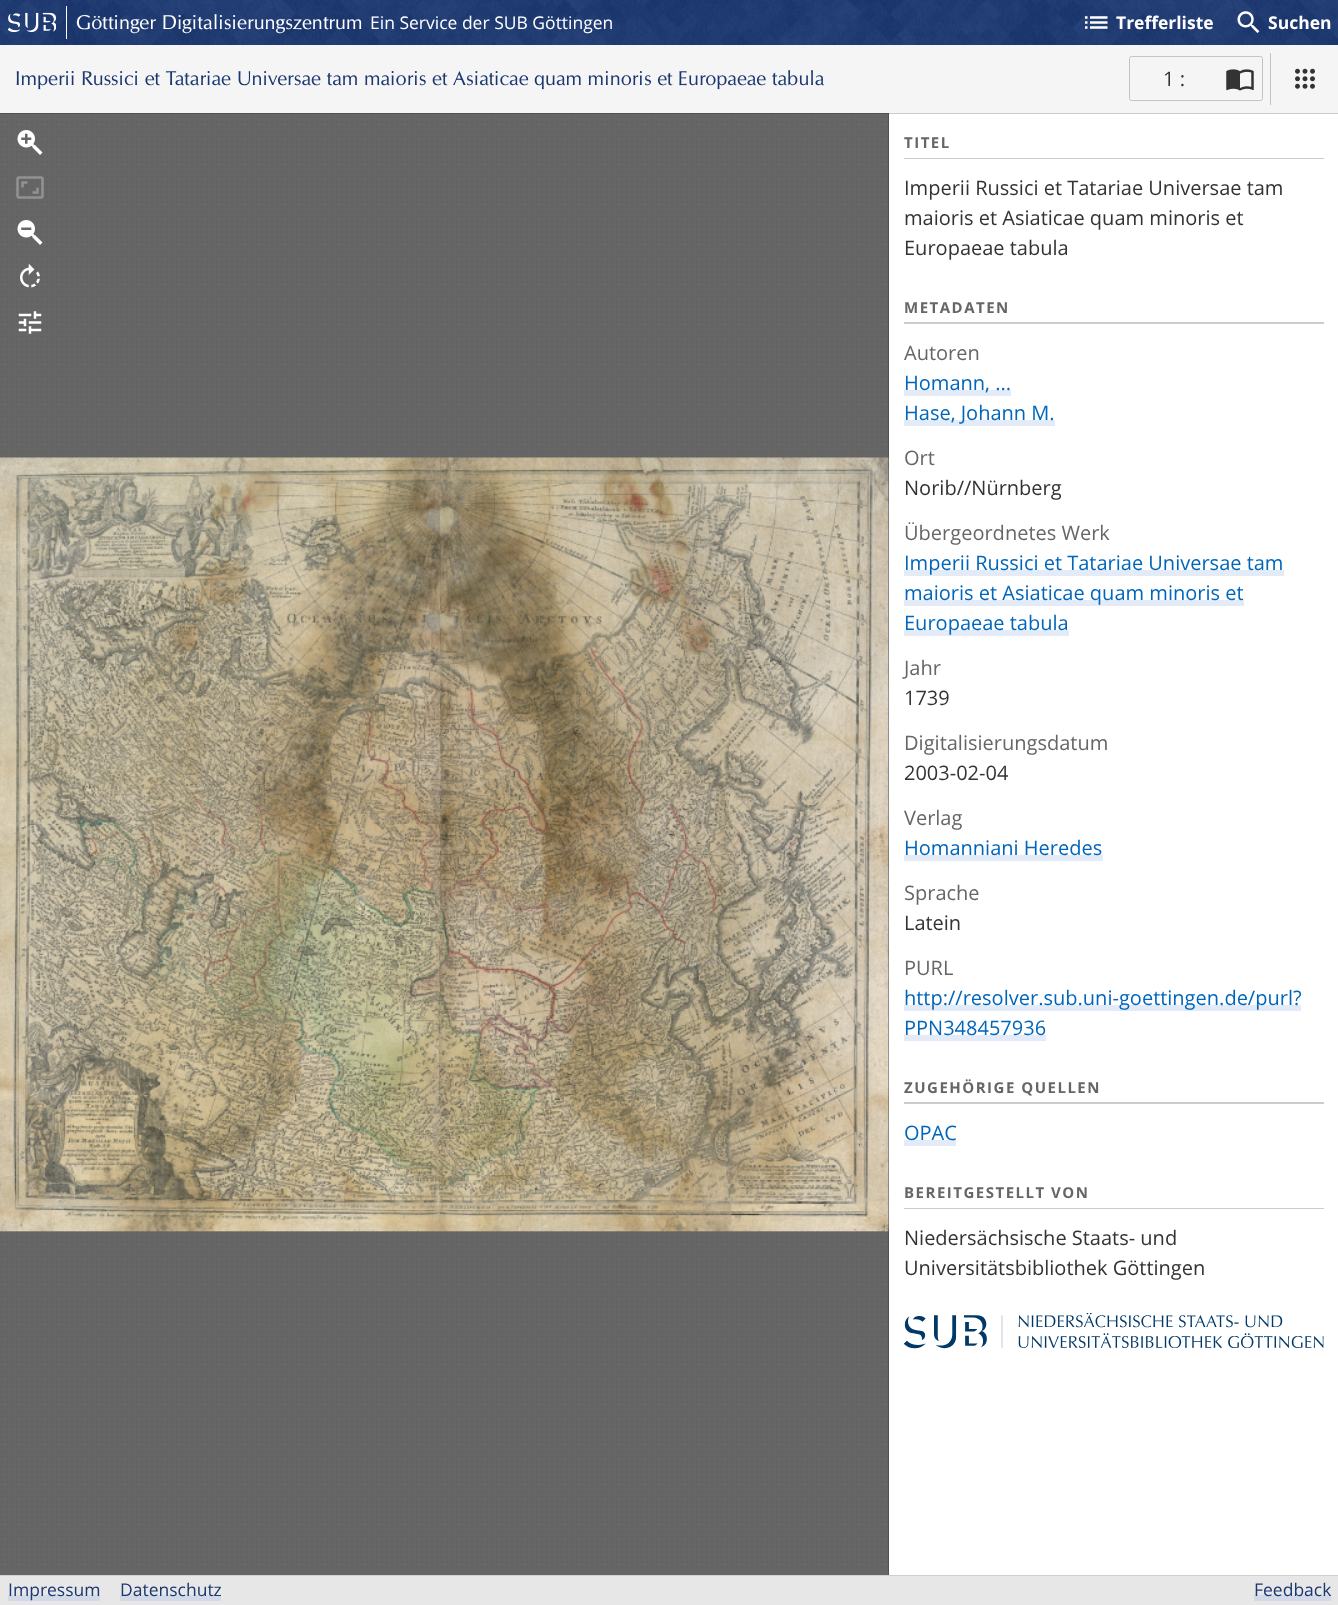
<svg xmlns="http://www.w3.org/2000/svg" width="1338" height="1605">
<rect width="100%" height="100%" fill="#e7e7e7"/>
<image x="0" y="0" width="1338" height="45" href="media/1.png"/>
<image x="8" y="12" width="48" height="21" href="media/2.png"/>
<text x="76" y="29" style="font-family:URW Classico;font-size:20px;fill:#fff">Göttinger Digitalisierungszentrum</text>
<rect x="66" y="6" width="1" height="33" fill="#fff"/>
<text x="370" y="29" style="font-family:Open Sans;font-size:17.5px;fill:#fff">Ein Service der SUB Göttingen</text>
<image x="1085" y="16" width="23" height="13" href="media/3.png"/>
<text x="1116" y="29" style="font-family:Open Sans;font-size:17.5px;font-weight:bold;fill:#fff">Trefferliste</text>
<image x="1237" y="11" width="23" height="22" href="media/4.png"/>
<text x="1268" y="29" style="font-family:Open Sans;font-size:17.5px;font-weight:bold;fill:#fff">Suchen</text>
<rect y="113" width="889" height="1462" fill="#666"/>
<image x="1" y="116" width="887" height="1456" href="media/5.png"/>
<image x="0" y="457" width="889" height="775" href="media/13.png"/>
<rect x="888" y="113" width="1" height="1462" fill="#00000033"/>
<rect x="889" y="113" width="449" height="1462" fill="#fff"/>
<path d="M0 112v2h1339v-68v66z" fill="#00000033"/>
<rect y="45" width="1338" height="68" fill="#f5f5f5"/>
<text x="15" y="85" style="font-family:URW Classico;font-size:20px;fill:#1a3771">Imperii Russici et Tatariae Universae tam maioris et Asiaticae quam minoris et Europaeae tabula</text>
<rect x="1129.5" y="56.5" width="133" height="44" rx="2" fill="none" stroke="#c4c4c4"/>
<text x="1163" y="86" style="font-family:Open Sans;font-size:20px;fill:#333">1 :</text>
<image x="1226" y="69" width="28" height="22" href="media/6.png"/>
<rect x="1270" y="53" width="1" height="52" fill="#c4c4c4"/>
<image x="1295" y="68" width="20" height="21" href="media/7.png"/>
<image x="17" y="130" width="26" height="25" href="media/8.png"/>
<image x="16" y="176" width="28" height="23" href="media/9.png"/>
<image x="17" y="220" width="26" height="25" href="media/10.png"/>
<image x="20" y="263" width="20" height="25" href="media/11.png"/>
<image x="18" y="311" width="24" height="23" href="media/12.png"/>
<path d="M904 158v1h420v-30v29z" fill="#ccc"/>
<text x="904" y="148" style="font-family:Open Sans;font-size:15px;font-weight:bold;letter-spacing:1.5px;fill:#666">TITEL</text>
<text x="904" y="195" style="font-family:Open Sans;font-size:20px;fill:#333">Imperii Russici et Tatariae Universae tam</text>
<text x="904" y="225" style="font-family:Open Sans;font-size:20px;fill:#333">maioris et Asiaticae quam minoris et</text>
<text x="904" y="255" style="font-family:Open Sans;font-size:20px;fill:#333">Europaeae tabula</text>
<path d="M904 322v2h420v-30v28z" fill="#ccc"/>
<text x="904" y="313" style="font-family:Open Sans;font-size:15px;font-weight:bold;letter-spacing:1.5px;fill:#666">METADATEN</text>
<text x="904" y="360" style="font-family:Open Sans;font-size:20px;fill:#666">Autoren</text>
<rect x="904" y="390" width="107" height="6" fill="#e3eaf8"/>
<text x="904" y="390" style="font-family:Open Sans;font-size:20px;fill:#06b">Homann, ...</text>
<rect x="904" y="420" width="151" height="6" fill="#e3eaf8"/>
<text x="904" y="420" style="font-family:Open Sans;font-size:20px;fill:#06b">Hase, Johann M.</text>
<text x="904" y="465" style="font-family:Open Sans;font-size:20px;fill:#666">Ort</text>
<text x="904" y="495" style="font-family:Open Sans;font-size:20px;fill:#333">Norib//Nürnberg</text>
<text x="904" y="540" style="font-family:Open Sans;font-size:20px;fill:#666">Übergeordnetes Werk</text>
<rect x="904" y="570" width="380" height="6" fill="#e3eaf8"/>
<text x="904" y="570" style="font-family:Open Sans;font-size:20px;fill:#06b">Imperii Russici et Tatariae Universae tam</text>
<rect x="904" y="600" width="340" height="6" fill="#e3eaf8"/>
<text x="904" y="600" style="font-family:Open Sans;font-size:20px;fill:#06b">maioris et Asiaticae quam minoris et</text>
<rect x="904" y="630" width="165" height="6" fill="#e3eaf8"/>
<text x="904" y="630" style="font-family:Open Sans;font-size:20px;fill:#06b">Europaeae tabula</text>
<text x="904" y="675" style="font-family:Open Sans;font-size:20px;fill:#666">Jahr</text>
<text x="904" y="705" style="font-family:Open Sans;font-size:20px;fill:#333">1739</text>
<text x="904" y="750" style="font-family:Open Sans;font-size:20px;fill:#666">Digitalisierungsdatum</text>
<text x="904" y="780" style="font-family:Open Sans;font-size:20px;fill:#333">2003-02-04</text>
<text x="904" y="825" style="font-family:Open Sans;font-size:20px;fill:#666">Verlag</text>
<rect x="904" y="855" width="199" height="6" fill="#e3eaf8"/>
<text x="904" y="855" style="font-family:Open Sans;font-size:20px;fill:#06b">Homanniani Heredes</text>
<text x="904" y="900" style="font-family:Open Sans;font-size:20px;fill:#666">Sprache</text>
<text x="904" y="930" style="font-family:Open Sans;font-size:20px;fill:#333">Latein</text>
<text x="904" y="975" style="font-family:Open Sans;font-size:20px;fill:#666">PURL</text>
<rect x="904" y="1005" width="397" height="6" fill="#e3eaf8"/>
<text x="904" y="1005" style="font-family:Open Sans;font-size:20px;fill:#06b">http://resolver.sub.uni-goettingen.de/purl?</text>
<rect x="904" y="1035" width="142" height="6" fill="#e3eaf8"/>
<text x="904" y="1035" style="font-family:Open Sans;font-size:20px;fill:#06b">PPN348457936</text>
<path d="M904 1102v2h420v-30v28z" fill="#ccc"/>
<text x="904" y="1093" style="font-family:Open Sans;font-size:15px;font-weight:bold;letter-spacing:1.5px;fill:#666">ZUGEHÖRIGE QUELLEN</text>
<rect x="904" y="1140" width="52" height="6" fill="#e3eaf8"/>
<text x="904" y="1140" style="font-family:Open Sans;font-size:20px;fill:#06b">OPAC</text>
<path d="M904 1208v1h420v-30v29z" fill="#ccc"/>
<text x="904" y="1198" style="font-family:Open Sans;font-size:15px;font-weight:bold;letter-spacing:1.5px;fill:#666">BEREITGESTELLT VON</text>
<text x="904" y="1245" style="font-family:Open Sans;font-size:20px;fill:#333">Niedersächsische Staats- und</text>
<text x="904" y="1275" style="font-family:Open Sans;font-size:20px;fill:#333">Universitätsbibliothek Göttingen</text>
<image x="904" y="1313" width="420" height="36" href="media/14.png"/>
<rect y="1575" width="1338" height="1" fill="#d0d0d0"/>
<rect x="8" y="1595" width="92" height="6" fill="#d2d9e8"/>
<text x="8" y="1596" style="font-family:Open Sans;font-size:17.5px;fill:#1a3771">Impressum</text>
<rect x="120" y="1595" width="101" height="6" fill="#d2d9e8"/>
<text x="120" y="1596" style="font-family:Open Sans;font-size:17.5px;fill:#1a3771">Datenschutz</text>
<rect x="1254" y="1595" width="77" height="6" fill="#d2d9e8"/>
<text x="1254" y="1596" style="font-family:Open Sans;font-size:17.5px;fill:#1a3771">Feedback</text>
</svg>
